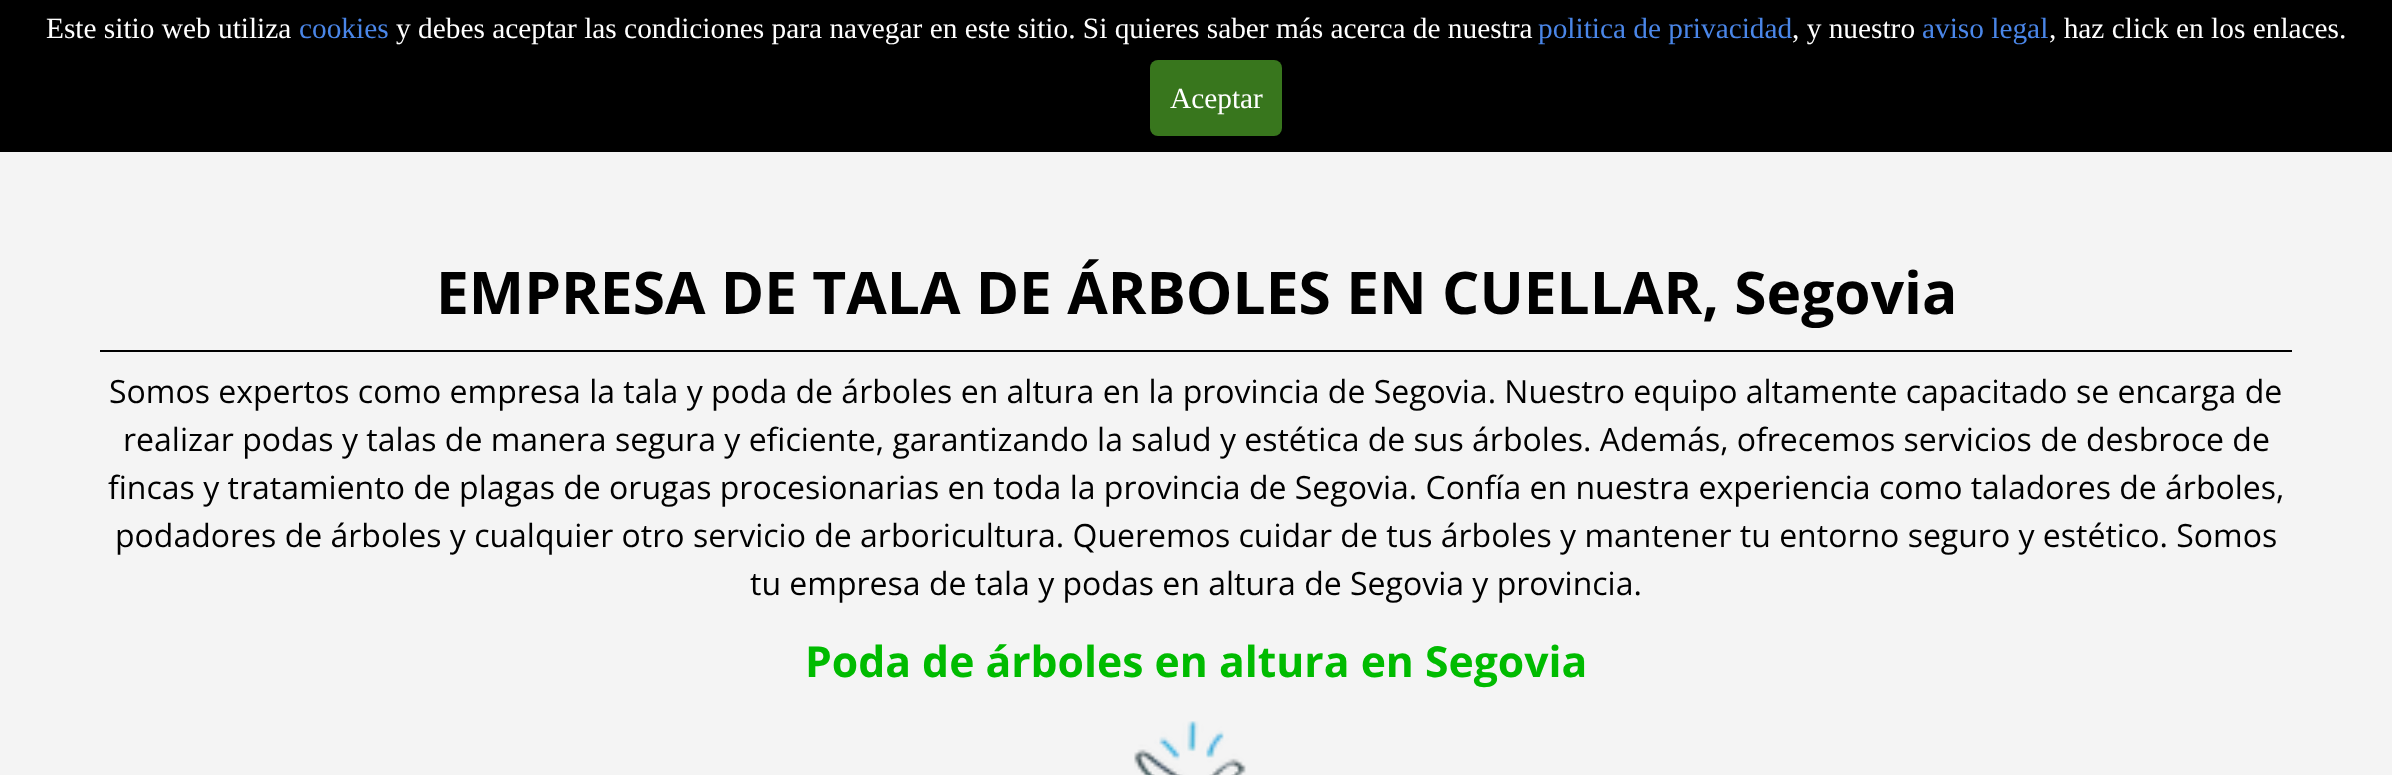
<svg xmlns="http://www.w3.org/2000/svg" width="2392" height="775">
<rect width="100%" height="100%" fill="#fff"/>
<rect x="482" y="6" width="1430" height="138" rx="90" fill="#000" filter="blur(5px)"/>
<rect width="2392" height="152" fill="#000"/>
<text x="46" y="38" style="font-family:Liberation Serif;font-size:29.35px;fill:#fff">Este sitio web utiliza</text>
<text x="299" y="38" style="font-family:Liberation Serif;font-size:29.35px;fill:#4a86e8">cookies</text>
<text x="396" y="38" style="font-family:Liberation Serif;font-size:29.35px;fill:#fff">y debes aceptar las condiciones para navegar en este sitio. Si quieres saber más acerca de nuestra</text>
<text x="1538" y="38" style="font-family:Liberation Serif;font-size:29.35px;fill:#4a86e8">politica de privacidad</text>
<text x="1792" y="38" style="font-family:Liberation Serif;font-size:29.35px;fill:#fff">, y nuestro</text>
<text x="1922" y="38" style="font-family:Liberation Serif;font-size:29.35px;fill:#4a86e8">aviso legal</text>
<text x="2049" y="38" style="font-family:Liberation Serif;font-size:29.35px;fill:#fff">, haz click en los enlaces.</text>
<rect x="1150" y="60" width="132" height="76" rx="8" fill="#38761d"/>
<text x="1170" y="108" style="font-family:Liberation Serif;font-size:29.35px;fill:#fff">Aceptar</text>
<rect y="152" width="2392" height="623" fill="#f3f3f3f2"/>
<text x="436" y="314" style="font-family:Open Sans;font-size:58.7px;font-weight:bold;fill:#000">EMPRESA DE TALA DE ÁRBOLES EN CUELLAR, Segovia</text>
<rect x="100" y="350" width="2192" height="2" fill="#000"/>
<text x="109" y="403" style="font-family:Open Sans;font-size:32px;fill:#000">Somos expertos como empresa la tala y poda de árboles en altura en la provincia de Segovia. Nuestro equipo altamente capacitado se encarga de</text>
<text x="123" y="451" style="font-family:Open Sans;font-size:32px;fill:#000">realizar podas y talas de manera segura y eficiente, garantizando la salud y estética de sus árboles. Además, ofrecemos servicios de desbroce de</text>
<text x="108" y="499" style="font-family:Open Sans;font-size:32px;fill:#000">fincas y tratamiento de plagas de orugas procesionarias en toda la provincia de Segovia. Confía en nuestra experiencia como taladores de árboles,</text>
<text x="115" y="547" style="font-family:Open Sans;font-size:32px;fill:#000">podadores de árboles y cualquier otro servicio de arboricultura. Queremos cuidar de tus árboles y mantener tu entorno seguro y estético. Somos</text>
<text x="750" y="595" style="font-family:Open Sans;font-size:32px;fill:#000">tu empresa de tala y podas en altura de Segovia y provincia.</text>
<text x="805" y="677" style="font-family:Open Sans;font-size:42.7px;font-weight:bold;fill:#0b0">Poda de árboles en altura en Segovia</text>
<image x="1134" y="721" width="112" height="54" href="media/1.png"/>
</svg>
